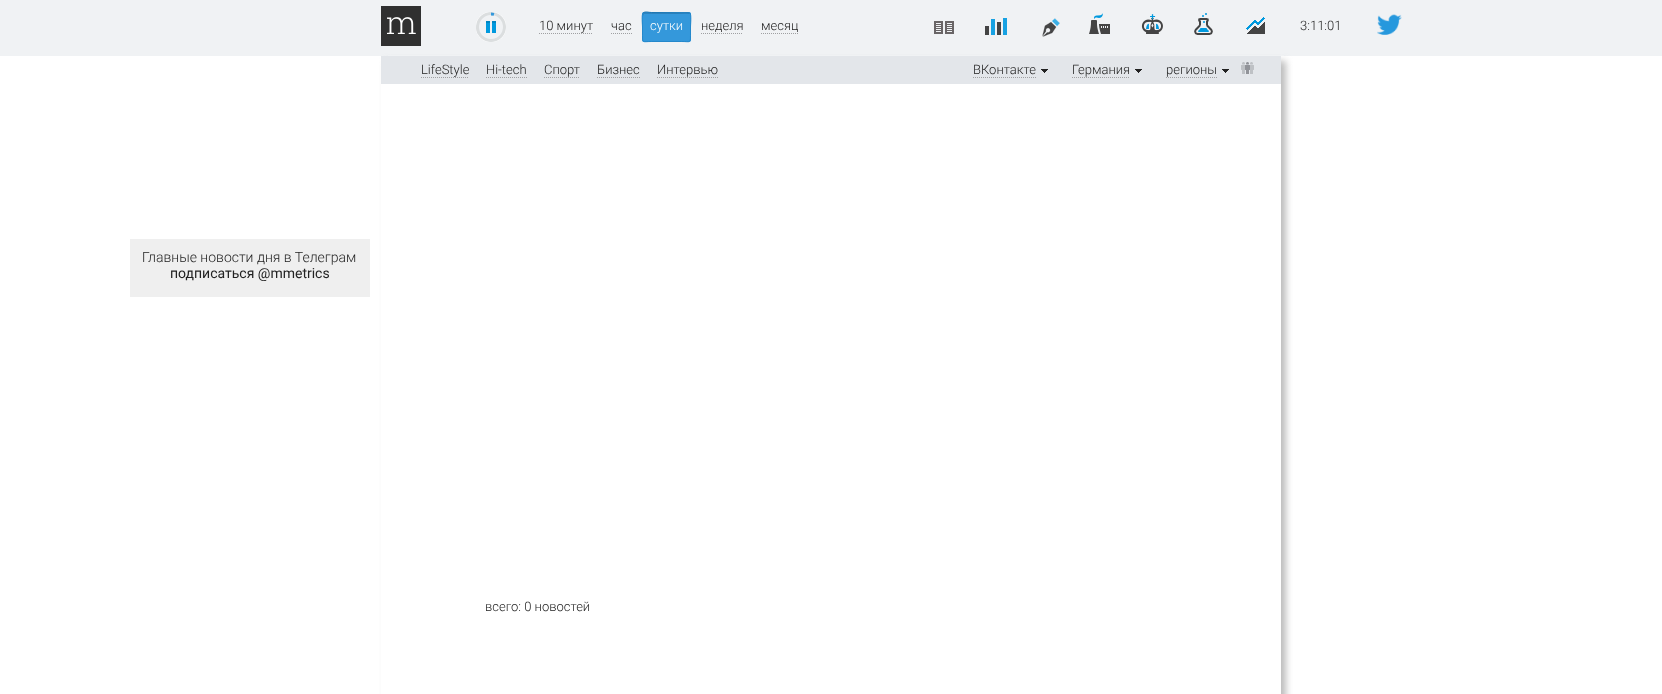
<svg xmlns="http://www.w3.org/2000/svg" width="1662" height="694">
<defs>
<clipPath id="clip1"><path d="M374 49h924v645h-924zm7 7h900v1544h-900z" clip-rule="evenodd"/></clipPath>
</defs>
<rect width="100%" height="100%" fill="#fff"/>
<rect width="1662" height="56" fill="#f0f2f4"/>
<g clip-path="url(#clip1)">
<rect x="386" y="61" width="900" height="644" fill="#7a7a7a80" filter="blur(3.5px)"/>
</g>
<rect x="388" y="55" width="896" height="1" fill="#f0f2f4"/>
<image x="381" y="6" width="40" height="40" href="media/1.png"/>
<image x="476" y="12" width="30" height="30" href="media/2.png"/>
<image x="491" y="12" width="4" height="4" href="media/3.png"/>
<path d="M539 33.5h54" fill="none" stroke="#9fa0a2" stroke-dasharray="1 1"/>
<text x="539" y="30" style="font-family:Roboto;font-size:13px;font-weight:300;fill:#222">10 минут</text>
<path d="M611 33.5h21" fill="none" stroke="#9fa0a2" stroke-dasharray="1 1"/>
<text x="611" y="30" style="font-family:Roboto;font-size:13px;font-weight:300;fill:#222">час</text>
<rect x="642" y="12" width="49" height="30" rx="2" fill="#3498db"/>
<path d="M644 14h33l12-1c1 1 1 2 1 3c0-5-3-3-8-3h-30c-8 0-9-2-9 3zm46 26v1z" fill="#2d84bf" fill-rule="evenodd"/>
<path d="M643 13c2-2 5.5-.5 8.5-.5l38.5 .5" fill="none" stroke="#1f76b1"/>
<path d="M690 13c1.5 1.5 .5 12 .5 14v8.5c0 8 0 6-9 6h-30c-9 0-9 2-9-6v-8.5c0-2-1-12.5 .5-14" fill="none" stroke="#2488cb"/>
<text x="650" y="30" style="font-family:Roboto;font-size:13px;font-weight:300;fill:#fff">сутки</text>
<path d="M701 33.5h42" fill="none" stroke="#9fa0a2" stroke-dasharray="1 1"/>
<text x="701" y="30" style="font-family:Roboto;font-size:13px;font-weight:300;fill:#222">неделя</text>
<path d="M761 33.5h38" fill="none" stroke="#9fa0a2" stroke-dasharray="1 1"/>
<text x="761" y="30" style="font-family:Roboto;font-size:13px;font-weight:300;fill:#222">месяц</text>
<image x="934" y="21" width="20" height="13" href="media/4.png"/>
<image x="985" y="18" width="22" height="17" href="media/5.png"/>
<image x="1042" y="18" width="18" height="19" href="media/6.png"/>
<image x="1089" y="13" width="21" height="21" href="media/7.png"/>
<image x="1141" y="14" width="22" height="20" href="media/8.png"/>
<image x="1194" y="13" width="19" height="22" href="media/9.png"/>
<image x="1246" y="17" width="19" height="17" href="media/10.png"/>
<text x="1300" y="30" style="font-family:Roboto;font-size:13px;font-weight:300;fill:#222">3:11:01</text>
<image x="1377" y="14" width="25" height="21" href="media/11.png"/>
<rect x="381" y="56" width="900" height="28" fill="#e3e6ea"/>
<path d="M421 77.5h48" fill="none" stroke="#9fa0a2" stroke-dasharray="1 1"/>
<text x="421" y="74" style="font-family:Roboto;font-size:13px;font-weight:300;fill:#222">LifeStyle</text>
<path d="M486 77.5h41" fill="none" stroke="#9fa0a2" stroke-dasharray="1 1"/>
<text x="486" y="74" style="font-family:Roboto;font-size:13px;font-weight:300;fill:#222">Hi-tech</text>
<path d="M544 77.5h36" fill="none" stroke="#9fa0a2" stroke-dasharray="1 1"/>
<text x="544" y="74" style="font-family:Roboto;font-size:13px;font-weight:300;fill:#222">Спорт</text>
<path d="M597 77.5h43" fill="none" stroke="#9fa0a2" stroke-dasharray="1 1"/>
<text x="597" y="74" style="font-family:Roboto;font-size:13px;font-weight:300;fill:#222">Бизнес</text>
<path d="M657 77.5h61" fill="none" stroke="#9fa0a2" stroke-dasharray="1 1"/>
<text x="657" y="74" style="font-family:Roboto;font-size:13px;font-weight:300;fill:#222">Интервью</text>
<path d="M973 77.5h63" fill="none" stroke="#9fa0a2" stroke-dasharray="1 1"/>
<text x="973" y="74" style="font-family:Roboto;font-size:13px;font-weight:300;fill:#222">ВКонтакте</text>
<image x="1041" y="69" width="7" height="4" href="media/12.png"/>
<path d="M1072 77.5h58" fill="none" stroke="#9fa0a2" stroke-dasharray="1 1"/>
<text x="1072" y="74" style="font-family:Roboto;font-size:13px;font-weight:300;fill:#222">Германия</text>
<image x="1135" y="69" width="7" height="4" href="media/12.png"/>
<path d="M1166 77.5h51" fill="none" stroke="#9fa0a2" stroke-dasharray="1 1"/>
<text x="1166" y="74" style="font-family:Roboto;font-size:13px;font-weight:300;fill:#222">регионы</text>
<image x="1222" y="69" width="7" height="4" href="media/12.png"/>
<image x="1241" y="62" width="13" height="12" href="media/13.png"/>
<rect x="130" y="239" width="240" height="58" fill="#efefef"/>
<text x="142" y="262" style="font-family:Roboto;font-size:14px;font-weight:300;fill:#222">Главные новости дня в Телеграм</text>
<text x="170" y="278" style="font-family:Roboto;font-size:14px;fill:#222">подписаться @mmetrics</text>
<text x="485" y="611" style="font-family:Roboto;font-size:13px;font-weight:300;fill:#222">всего: 0 новостей</text>
</svg>
